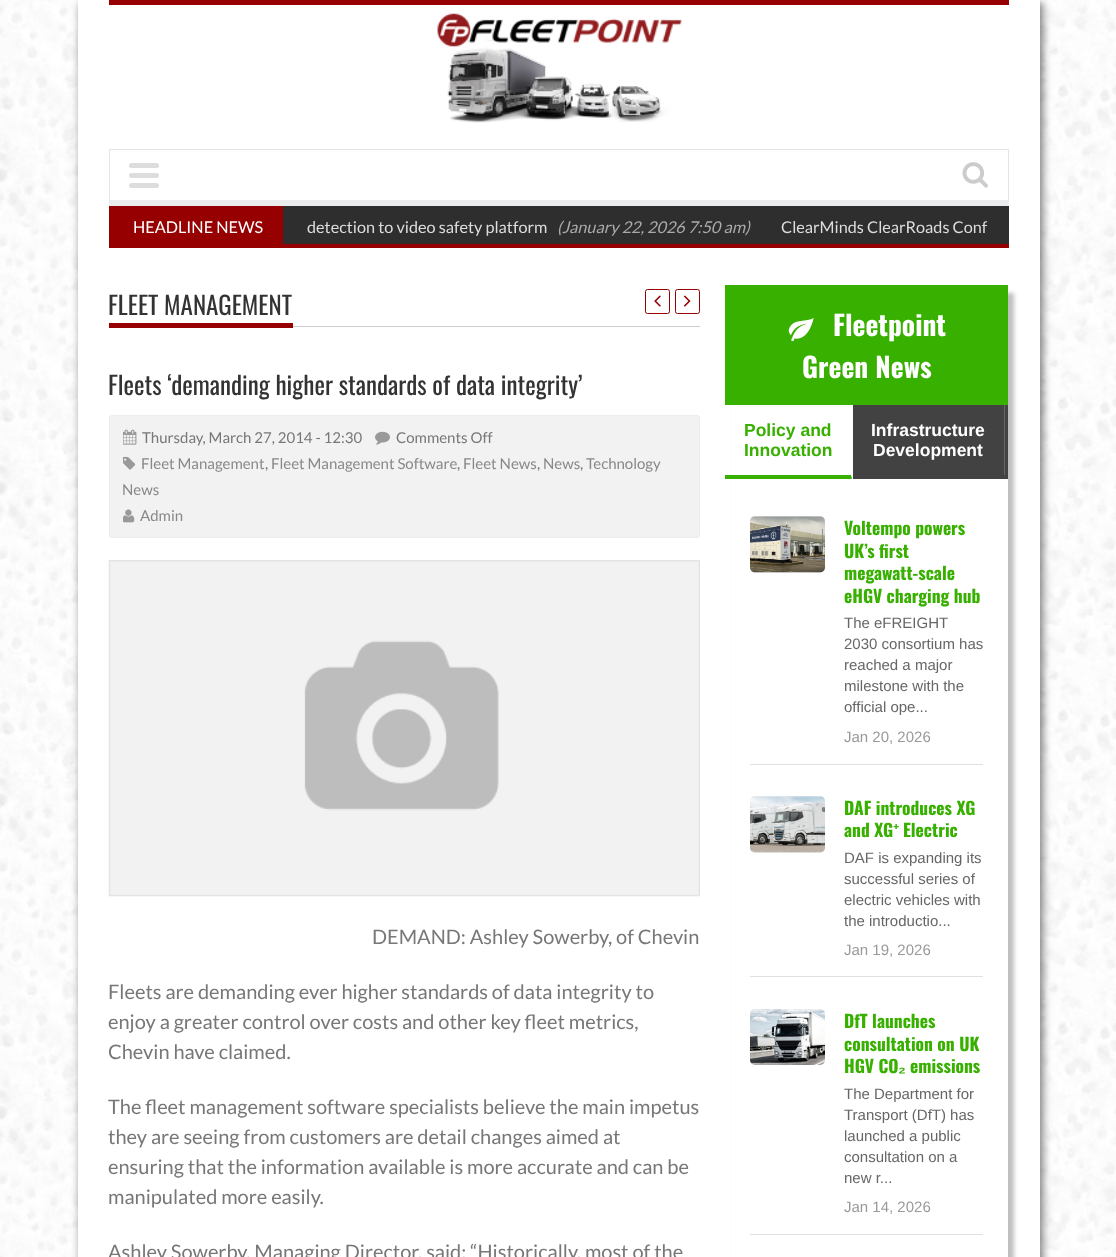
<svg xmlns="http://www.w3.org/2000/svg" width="1116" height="1257">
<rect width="100%" height="100%" fill="#fff"/>
<image x="0" y="0" width="1116" height="1257" href="media/1.png"/>
<rect x="80" y="3" width="963" height="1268" fill="#00000080" filter="blur(4.5px)"/>
<rect x="78" width="962" height="1257" fill="#fff"/>
<rect x="109" width="900" height="5" fill="#960000"/>
<image x="437" y="13" width="245" height="110" href="media/2.png"/>
<rect x="109" y="149" width="900" height="1" fill="#e4e4e4"/>
<path d="M1009 149v57l-1-6v-50z" fill="#e4e4e4"/>
<path d="M1009 206h-900l1-6h898z" fill="#eaeced"/>
<path d="M109 206v-57l1 1v50z" fill="#e4e4e4"/>
<rect x="129" y="163" width="30" height="5" rx="2.5" fill="#ddd"/>
<rect x="129" y="173" width="30" height="5" rx="2.5" fill="#ddd"/>
<rect x="129" y="183" width="30" height="5" rx="2.5" fill="#ddd"/>
<image x="962" y="162" width="26" height="26" href="media/3.png"/>
<rect x="109" y="206" width="900" height="42" fill="#960000"/>
<text x="133" y="233" style="font-family:Lato;font-size:16.25px;fill:#fff">HEADLINE NEWS</text>
<rect x="283" y="206" width="726" height="38" fill="#2e2e2e"/>
<text x="307" y="233" style="font-family:Lato;font-size:16.25px;fill:#ddd">detection to video safety platform</text>
<text x="557" y="233" style="font-family:Lato;font-size:16.25px;font-style:italic;fill:#aaa">(January 22, 2026 7:50 am)</text>
<text x="781" y="233" style="font-family:Lato;font-size:16.25px;fill:#ddd">ClearMinds ClearRoads Conf</text>
<rect x="293" y="326" width="407" height="1" fill="#ccc"/>
<rect x="109" y="323" width="184" height="5" fill="#960000"/>
<text x="108" y="315" style="font-family:Oswald;font-size:25px;fill:#333">FLEET MANAGEMENT</text>
<rect x="645.5" y="289.5" width="24" height="24" rx="2" fill="none" stroke="#960000"/>
<image x="654" y="295" width="7" height="12" href="media/4.png"/>
<rect x="675.5" y="289.5" width="24" height="24" rx="2" fill="none" stroke="#960000"/>
<image x="683" y="295" width="8" height="12" href="media/5.png"/>
<text x="108" y="395" style="font-family:Oswald;font-size:25px;fill:#333">Fleets ‘demanding higher standards of data integrity’</text>
<rect x="109.5" y="415.5" width="590" height="122" rx="2" fill="#f2f2f2" stroke="#ececec"/>
<image x="123" y="429" width="14" height="16" href="media/6.png"/>
<text x="142" y="443" style="font-family:Lato;font-size:15px;fill:#777">Thursday, March 27, 2014 - 12:30</text>
<image x="375" y="431" width="15" height="14" href="media/7.png"/>
<text x="396" y="443" style="font-family:Lato;font-size:15px;fill:#777">Comments Off</text>
<image x="123" y="456" width="13" height="14" href="media/8.png"/>
<text x="141" y="469" style="font-family:Lato;font-size:15px;fill:#888">Fleet Management</text>
<text x="265" y="469" style="font-family:Lato;font-size:15px;fill:#777">,</text>
<text x="271" y="469" style="font-family:Lato;font-size:15px;fill:#888">Fleet Management Software</text>
<text x="457" y="469" style="font-family:Lato;font-size:15px;fill:#777">,</text>
<text x="463" y="469" style="font-family:Lato;font-size:15px;fill:#888">Fleet News</text>
<text x="537" y="469" style="font-family:Lato;font-size:15px;fill:#777">,</text>
<text x="543" y="469" style="font-family:Lato;font-size:15px;fill:#888">News</text>
<text x="580" y="469" style="font-family:Lato;font-size:15px;fill:#777">,</text>
<text x="586" y="469" style="font-family:Lato;font-size:15px;fill:#888">Technology</text>
<text x="122" y="495" style="font-family:Lato;font-size:15px;fill:#888">News</text>
<image x="123" y="509" width="12" height="14" href="media/9.png"/>
<text x="140" y="521" style="font-family:Lato;font-size:15px;fill:#888">Admin</text>
<image x="108" y="560" width="592" height="337" href="media/10.png"/>
<text x="372" y="944" style="font-family:Lato;font-size:20px;fill:#777">DEMAND: Ashley Sowerby, of Chevin</text>
<text x="108" y="999" style="font-family:Lato;font-size:20px;fill:#777">Fleets are demanding ever higher standards of data integrity to</text>
<text x="108" y="1029" style="font-family:Lato;font-size:20px;fill:#777">enjoy a greater control over costs and other key fleet metrics,</text>
<text x="108" y="1059" style="font-family:Lato;font-size:20px;fill:#777">Chevin have claimed.</text>
<text x="108" y="1114" style="font-family:Lato;font-size:20px;fill:#777">The fleet management software specialists believe the main impetus</text>
<text x="108" y="1144" style="font-family:Lato;font-size:20px;fill:#777">they are seeing from customers are detail changes aimed at</text>
<text x="108" y="1174" style="font-family:Lato;font-size:20px;fill:#777">ensuring that the information available is more accurate and can be</text>
<text x="108" y="1204" style="font-family:Lato;font-size:20px;fill:#777">manipulated more easily.</text>
<text x="108" y="1259" style="font-family:Lato;font-size:20px;fill:#777">Ashley Sowerby, Managing Director, said: “Historically, most of the</text>
<rect x="734" y="293" width="280" height="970" fill="#73717373" filter="blur(2px)"/>
<rect x="725" y="285" width="283" height="120" fill="#38b000"/>
<image x="788" y="317" width="26" height="25" href="media/11.png"/>
<text x="833" y="336" style="font-family:Oswald;font-size:27.5px;font-weight:bold;fill:#fff">Fleetpoint</text>
<text x="802" y="378" style="font-family:Oswald;font-size:27.5px;font-weight:bold;fill:#fff">Green News</text>
<rect x="853" y="405" width="155" height="74" fill="#424242"/>
<rect x="731" y="405" width="122" height="74" fill="#fff"/>
<path d="M852 479h-127v-4h126z" fill="#38b000"/>
<text x="744" y="436" style="font-family:Liberation Sans;font-size:17.5px;font-weight:bold;fill:#38b000">Policy and</text>
<text x="744" y="456" style="font-family:Liberation Sans;font-size:17.5px;font-weight:bold;fill:#38b000">Innovation</text>
<rect x="1004" y="405" width="1" height="70" fill="#686868"/>
<text x="871" y="436" style="font-family:Liberation Sans;font-size:17.5px;font-weight:bold;fill:#fff">Infrastructure</text>
<text x="873" y="456" style="font-family:Liberation Sans;font-size:17.5px;font-weight:bold;fill:#fff">Development</text>
<rect x="731" y="479" width="277" height="778" fill="#fff"/>
<rect x="750" y="764" width="233" height="1" fill="#e0e0e0"/>
<rect x="750" y="516" width="75" height="57" rx="5" fill="#e9ecef"/>
<image x="750" y="516" width="75" height="57" href="media/12.png"/>
<text x="844" y="535" style="font-family:Oswald;font-size:17.5px;font-weight:bold;fill:#38b000">Voltempo powers</text>
<text x="844" y="558" style="font-family:Oswald;font-size:17.5px;font-weight:bold;fill:#38b000">UK’s first</text>
<text x="844" y="580" style="font-family:Oswald;font-size:17.5px;font-weight:bold;fill:#38b000">megawatt-scale</text>
<text x="844" y="603" style="font-family:Oswald;font-size:17.5px;font-weight:bold;fill:#38b000">eHGV charging hub</text>
<text x="844" y="628" style="font-family:Liberation Sans;font-size:15px;fill:#666">The eFREIGHT</text>
<text x="844" y="649" style="font-family:Liberation Sans;font-size:15px;fill:#666">2030 consortium has</text>
<text x="844" y="670" style="font-family:Liberation Sans;font-size:15px;fill:#666">reached a major</text>
<text x="844" y="691" style="font-family:Liberation Sans;font-size:15px;fill:#666">milestone with the</text>
<text x="844" y="712" style="font-family:Liberation Sans;font-size:15px;fill:#666">official ope...</text>
<text x="844" y="742" style="font-family:Liberation Sans;font-size:15px;fill:#999">Jan 20, 2026</text>
<rect x="750" y="976" width="233" height="1" fill="#e0e0e0"/>
<rect x="750" y="796" width="75" height="57" rx="5" fill="#e9ecef"/>
<image x="750" y="796" width="75" height="57" href="media/13.png"/>
<text x="844" y="815" style="font-family:Oswald;font-size:17.5px;font-weight:bold;fill:#38b000">DAF introduces XG</text>
<text x="844" y="837" style="font-family:Oswald;font-size:17.5px;font-weight:bold;fill:#38b000">and XG</text>
<text x="893" y="837" style="font-family:Noto Sans;font-size:17.5px;font-weight:bold;fill:#38b000">⁺</text>
<text x="903" y="837" style="font-family:Oswald;font-size:17.5px;font-weight:bold;fill:#38b000">Electric</text>
<text x="844" y="863" style="font-family:Liberation Sans;font-size:15px;fill:#666">DAF is expanding its</text>
<text x="844" y="884" style="font-family:Liberation Sans;font-size:15px;fill:#666">successful series of</text>
<text x="844" y="905" style="font-family:Liberation Sans;font-size:15px;fill:#666">electric vehicles with</text>
<text x="844" y="926" style="font-family:Liberation Sans;font-size:15px;fill:#666">the introductio...</text>
<text x="844" y="955" style="font-family:Liberation Sans;font-size:15px;fill:#999">Jan 19, 2026</text>
<rect x="750" y="1234" width="233" height="1" fill="#e0e0e0"/>
<image x="750" y="1009" width="75" height="56" href="media/14.png"/>
<text x="844" y="1028" style="font-family:Oswald;font-size:17.5px;font-weight:bold;fill:#38b000">DfT launches</text>
<text x="844" y="1051" style="font-family:Oswald;font-size:17.5px;font-weight:bold;fill:#38b000">consultation on UK</text>
<text x="844" y="1073" style="font-family:Oswald;font-size:17.5px;font-weight:bold;fill:#38b000">HGV CO</text>
<text x="898" y="1073" style="font-family:Liberation Sans;font-size:17.5px;font-weight:bold;fill:#38b000">₂</text>
<text x="910" y="1073" style="font-family:Oswald;font-size:17.5px;font-weight:bold;fill:#38b000">emissions</text>
<text x="844" y="1099" style="font-family:Liberation Sans;font-size:15px;fill:#666">The Department for</text>
<text x="844" y="1120" style="font-family:Liberation Sans;font-size:15px;fill:#666">Transport (DfT) has</text>
<text x="844" y="1141" style="font-family:Liberation Sans;font-size:15px;fill:#666">launched a public</text>
<text x="844" y="1162" style="font-family:Liberation Sans;font-size:15px;fill:#666">consultation on a</text>
<text x="844" y="1183" style="font-family:Liberation Sans;font-size:15px;fill:#666">new r...</text>
<text x="844" y="1212" style="font-family:Liberation Sans;font-size:15px;fill:#999">Jan 14, 2026</text>
</svg>
